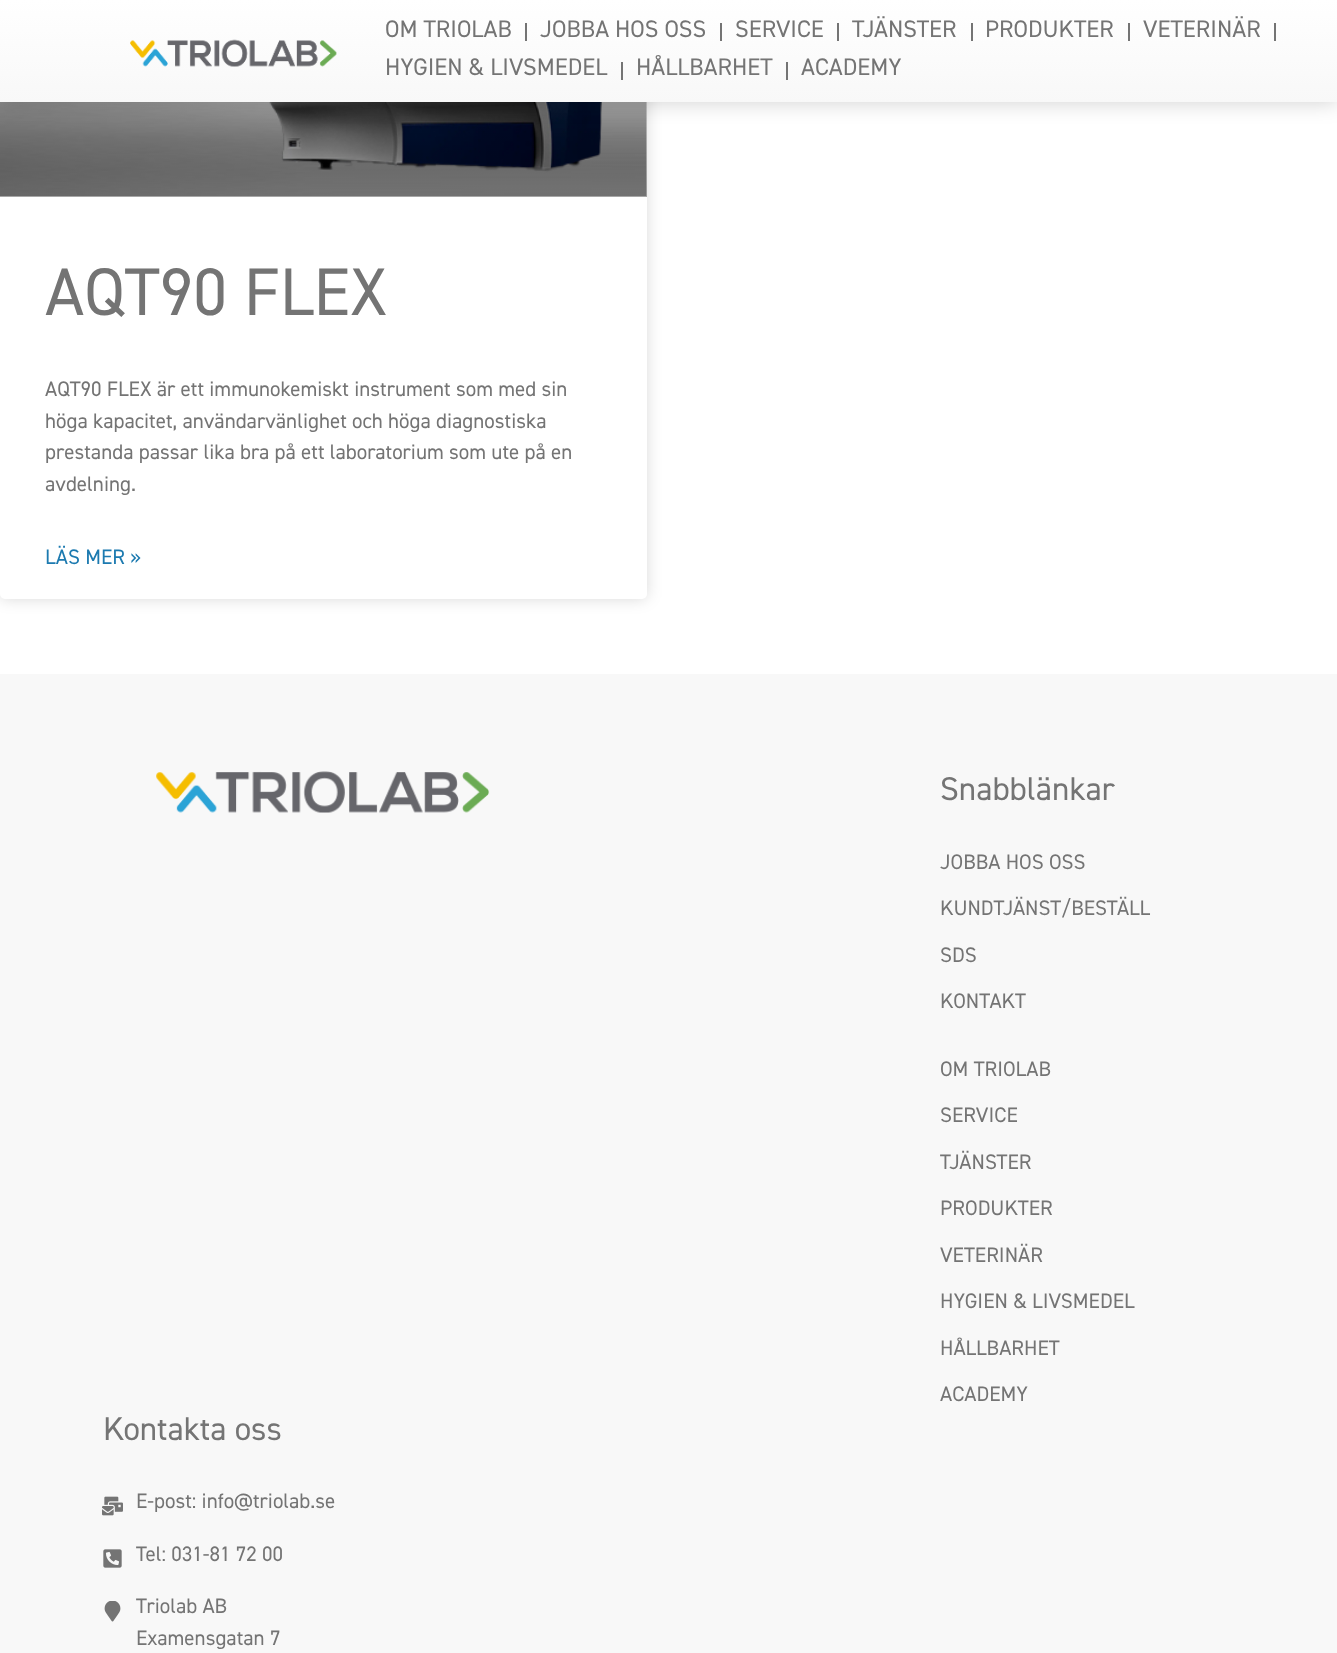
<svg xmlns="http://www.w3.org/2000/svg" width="1337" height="1653">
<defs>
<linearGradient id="g1" gradientUnits="userSpaceOnUse" x1="323" y1="197" x2="323" y2="-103"><stop offset="0" stop-color="#000" stop-opacity="0.35"/><stop offset="0.75" stop-color="#000" stop-opacity="0"/></linearGradient>
<linearGradient id="g2" gradientUnits="userSpaceOnUse" x1="669" y1="0" x2="669" y2="102"><stop offset="0" stop-color="#fff"/><stop offset="1" stop-color="#f8f8f8"/></linearGradient>
</defs>
<rect width="100%" height="100%" fill="#fff"/>
<rect y="-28" width="647" height="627" rx="5" fill="#00000026" filter="blur(7.5px)"/>
<rect y="-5" width="647" height="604" rx="5" fill="#fff"/>
<image x="0" y="102" width="647" height="94" href="media/2.png"/>
<rect y="102" width="647" height="95" fill="url(#g1)"/>
<rect width="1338" height="102" fill="#00000030" filter="blur(10.5px)"/>
<rect width="1337" height="102" fill="url(#g2)"/>
<image x="130" y="39" width="207" height="28" href="media/1.png"/>
<text x="385" y="37" style="font-family:'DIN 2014';font-size:24px;fill:#747474">OM TRIOLAB</text>
<rect x="525" y="23" width="2" height="18" fill="#747474"/>
<text x="540" y="37" style="font-family:'DIN 2014';font-size:24px;fill:#747474">JOBBA HOS OSS</text>
<rect x="720" y="23" width="2" height="18" fill="#747474"/>
<text x="735" y="37" style="font-family:'DIN 2014';font-size:24px;fill:#747474">SERVICE</text>
<rect x="837" y="23" width="2" height="18" fill="#747474"/>
<text x="852" y="37" style="font-family:'DIN 2014';font-size:24px;fill:#747474">TJÄNSTER</text>
<rect x="971" y="23" width="2" height="18" fill="#747474"/>
<text x="985" y="37" style="font-family:'DIN 2014';font-size:24px;fill:#747474">PRODUKTER</text>
<rect x="1128" y="23" width="2" height="18" fill="#747474"/>
<text x="1143" y="37" style="font-family:'DIN 2014';font-size:24px;fill:#747474">VETERINÄR</text>
<rect x="1274" y="23" width="2" height="18" fill="#747474"/>
<text x="385" y="75" style="font-family:'DIN 2014';font-size:24px;fill:#747474">HYGIEN &amp; LIVSMEDEL</text>
<rect x="621" y="62" width="2" height="18" fill="#747474"/>
<text x="636" y="75" style="font-family:'DIN 2014';font-size:24px;fill:#747474">HÅLLBARHET</text>
<rect x="786" y="62" width="2" height="18" fill="#747474"/>
<text x="801" y="75" style="font-family:'DIN 2014';font-size:24px;fill:#747474">ACADEMY</text>
<text x="45" y="315" style="font-family:'DIN 2014';font-size:67.5px;fill:#747474">AQT90 FLEX</text>
<text x="45" y="396" style="font-family:'DIN 2014';font-size:21px;fill:#747474">AQT90 FLEX är ett immunokemiskt instrument som med sin</text>
<text x="45" y="428" style="font-family:'DIN 2014';font-size:21px;fill:#747474">höga kapacitet, användarvänlighet och höga diagnostiska</text>
<text x="45" y="459" style="font-family:'DIN 2014';font-size:21px;fill:#747474">prestanda passar lika bra på ett laboratorium som ute på en</text>
<text x="45" y="491" style="font-family:'DIN 2014';font-size:21px;fill:#747474">avdelning.</text>
<text x="45" y="564" style="font-family:'DIN 2014';font-size:21px;fill:#1c7ab0">LÄS MER »</text>
<rect y="674" width="1337" height="979" fill="#f8f8f8"/>
<image x="156" y="771" width="334" height="42" href="media/3.png"/>
<text x="940" y="800" style="font-family:'DIN 2014';font-size:33px;fill:#747474">Snabblänkar</text>
<text x="940" y="869" style="font-family:'DIN 2014';font-size:21px;fill:#747474">JOBBA HOS OSS</text>
<text x="940" y="915" style="font-family:'DIN 2014';font-size:21px;fill:#747474">KUNDTJÄNST/BESTÄLL</text>
<text x="940" y="962" style="font-family:'DIN 2014';font-size:21px;fill:#747474">SDS</text>
<text x="940" y="1008" style="font-family:'DIN 2014';font-size:21px;fill:#747474">KONTAKT</text>
<text x="940" y="1076" style="font-family:'DIN 2014';font-size:21px;fill:#747474">OM TRIOLAB</text>
<text x="940" y="1122" style="font-family:'DIN 2014';font-size:21px;fill:#747474">SERVICE</text>
<text x="940" y="1169" style="font-family:'DIN 2014';font-size:21px;fill:#747474">TJÄNSTER</text>
<text x="940" y="1215" style="font-family:'DIN 2014';font-size:21px;fill:#747474">PRODUKTER</text>
<text x="940" y="1262" style="font-family:'DIN 2014';font-size:21px;fill:#747474">VETERINÄR</text>
<text x="940" y="1308" style="font-family:'DIN 2014';font-size:21px;fill:#747474">HYGIEN &amp; LIVSMEDEL</text>
<text x="940" y="1355" style="font-family:'DIN 2014';font-size:21px;fill:#747474">HÅLLBARHET</text>
<text x="940" y="1401" style="font-family:'DIN 2014';font-size:21px;fill:#747474">ACADEMY</text>
<text x="103" y="1440" style="font-family:'DIN 2014';font-size:33px;fill:#747474">Kontakta oss</text>
<image x="102" y="1496" width="21" height="20" href="media/4.png"/>
<text x="136" y="1508" style="font-family:'DIN 2014';font-size:21px;fill:#747474">E-post: info@triolab.se</text>
<image x="103" y="1549" width="19" height="19" href="media/5.png"/>
<text x="136" y="1561" style="font-family:'DIN 2014';font-size:21px;fill:#747474">Tel: 031-81 72 00</text>
<image x="104" y="1601" width="17" height="21" href="media/6.png"/>
<text x="136" y="1613" style="font-family:'DIN 2014';font-size:21px;fill:#747474">Triolab AB</text>
<text x="136" y="1645" style="font-family:'DIN 2014';font-size:21px;fill:#747474">Examensgatan 7</text>
</svg>
